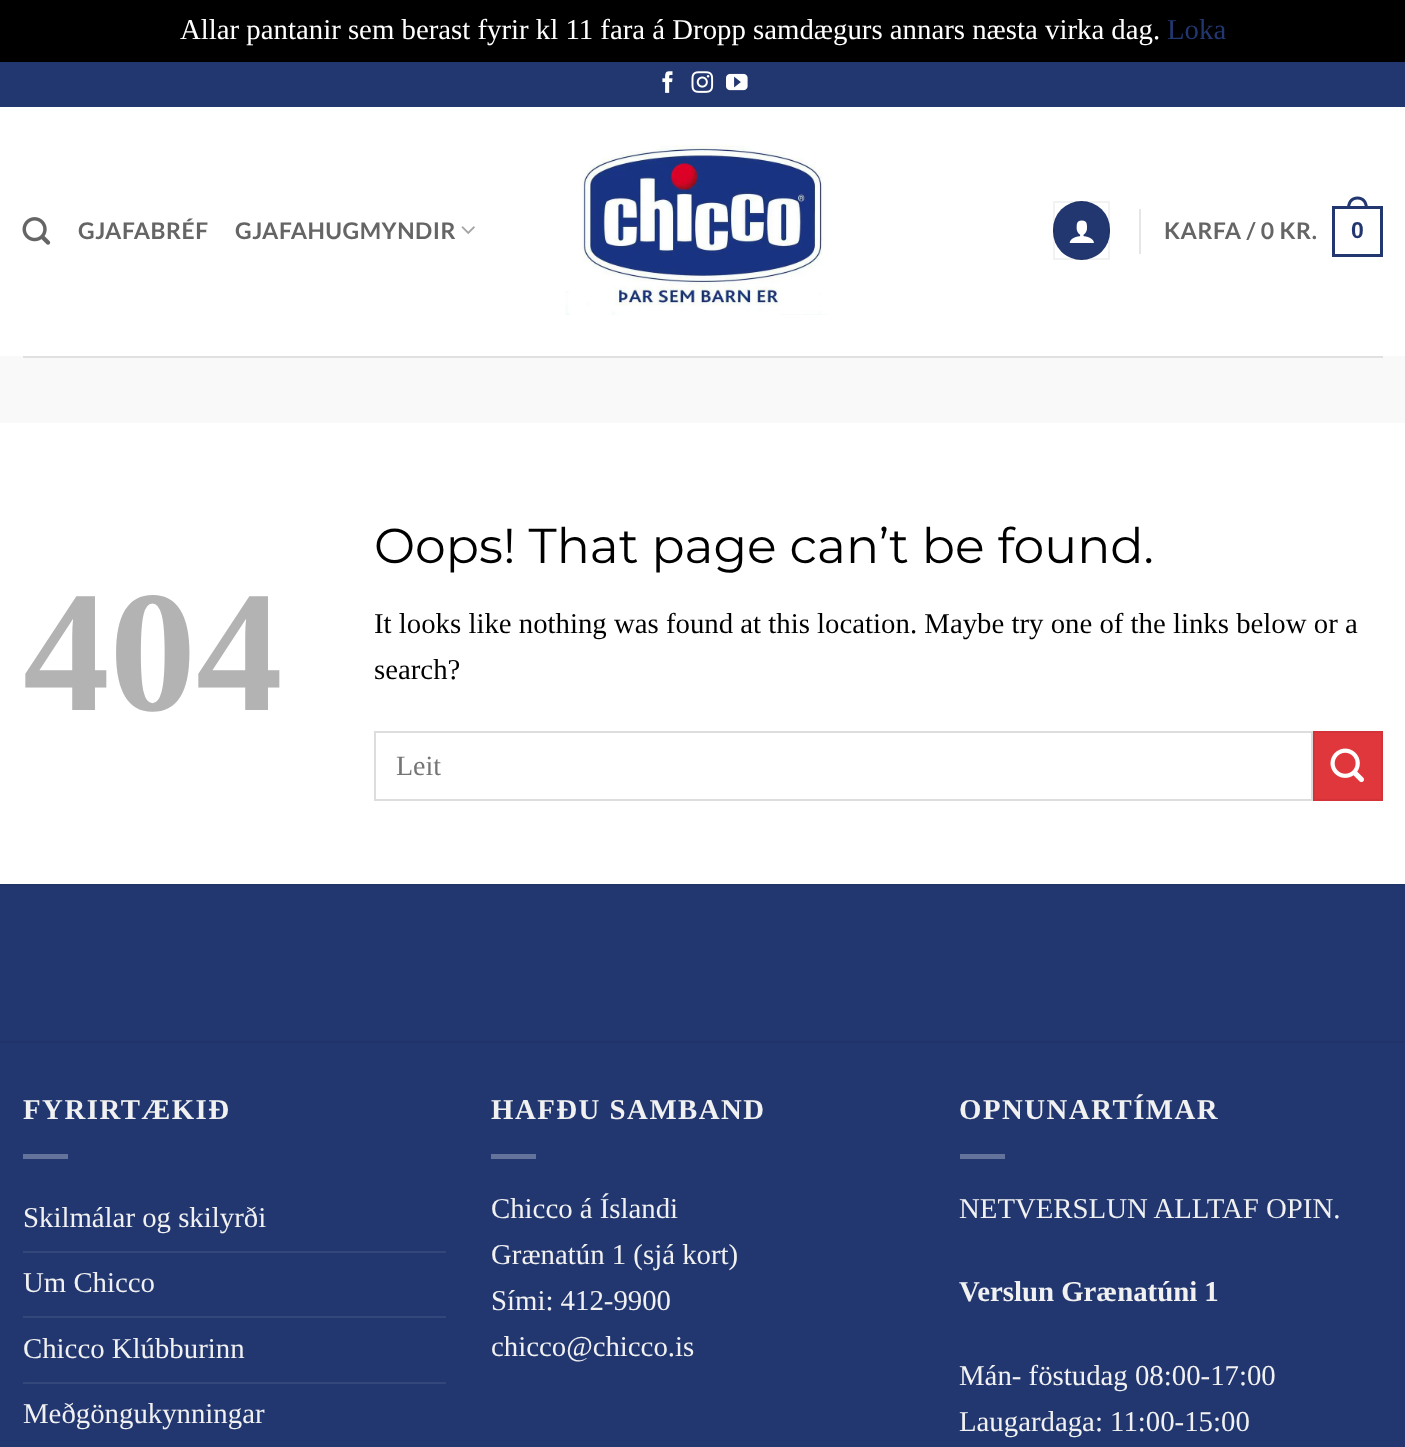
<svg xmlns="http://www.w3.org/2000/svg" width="1405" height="1447">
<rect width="100%" height="100%" fill="#000"/>
<text x="180" y="39" style="font-family:Liberation Serif;font-size:28.8px;fill:#fff">Allar pantanir sem berast fyrir kl 11 fara á Dropp samdægurs annars næsta virka dag.</text>
<text x="1167" y="39" style="font-family:Liberation Serif;font-size:28.8px;fill:#22376f">Loka</text>
<rect y="107" width="1405" height="777" fill="#fff"/>
<rect y="62" width="1405" height="45" fill="#22376f"/>
<image x="662" y="71" width="11" height="22" href="media/1.png"/>
<image x="691" y="71" width="23" height="22" href="media/2.png"/>
<image x="726" y="73" width="22" height="18" href="media/3.png"/>
<image x="22" y="217" width="29" height="28" href="media/4.png"/>
<text x="78" y="239" style="font-family:Lato;font-size:23px;font-weight:bold;letter-spacing:0.5px;fill:#656565">GJAFABRÉF</text>
<text x="235" y="239" style="font-family:Lato;font-size:23px;font-weight:bold;letter-spacing:0.5px;fill:#656565">GJAFAHUGMYNDIR</text>
<image x="461" y="226" width="14" height="8" href="media/5.png"/>
<image x="565" y="145" width="262" height="170" href="media/6.png"/>
<rect x="1053" y="201" width="57" height="59" rx="28.5" fill="#22376f"/>
<rect x="1054" y="202" width="55" height="57" fill="none" stroke="#0000000d" stroke-width="2"/>
<image x="1069" y="220" width="25" height="23" href="media/7.png"/>
<rect x="1139" y="209" width="2" height="45" fill="#e6e6e6"/>
<text x="1164" y="239" style="font-family:Lato;font-size:23px;font-weight:bold;letter-spacing:0.5px;fill:#656565">KARFA / 0 KR.</text>
<rect x="1333.5" y="207.5" width="48" height="48" fill="none" stroke="#22376f" stroke-width="3"/>
<path d="M1357.5 196.5c7 0 10.5 5.5 10.5 12h-21c0-6.5 3.5-12 10.5-12zm0 3c5.5 0 7.5 4.5 7.5 9h-15c0-4.5 2-9 7.5-9z" fill="#22376f" fill-rule="evenodd"/>
<text x="1351" y="238" style="font-family:Liberation Sans;font-size:23px;font-weight:bold;letter-spacing:0.5px;fill:#22376f">0</text>
<rect y="356" width="1405" height="67" fill="#f9f9f9"/>
<rect x="23" y="356" width="1360" height="2" fill="#e0e0e0"/>
<text x="23" y="710" style="font-family:Liberation Serif;font-size:173px;font-weight:bold;fill:#b3b3b3">404</text>
<text x="374" y="563" style="font-family:Montserrat;font-size:49px;font-weight:100;fill:#000">Oops! That page can’t be found.</text>
<text x="374" y="633" style="font-family:Liberation Serif;font-size:28.8px;fill:#000">It looks like nothing was found at this location. Maybe try one of the links below or a</text>
<text x="374" y="679" style="font-family:Liberation Serif;font-size:28.8px;fill:#000">search?</text>
<rect x="375" y="732" width="937" height="68" fill="none" stroke="#ddd" stroke-width="2"/>
<text x="396" y="775" style="font-family:Liberation Serif;font-size:28px;fill:#757575">Leit</text>
<rect x="1314" y="732" width="68" height="68" fill="#df373c" stroke="#d43439" stroke-width="2"/>
<image x="1330" y="748" width="34" height="35" href="media/8.png"/>
<rect y="886" width="1405" height="155" fill="#223770"/>
<rect y="884" width="1405" height="2" fill="#20346a"/>
<rect y="1043" width="1405" height="404" fill="#223770"/>
<rect y="1041" width="1405" height="2" fill="#20346a"/>
<text x="23" y="1119" style="font-family:Liberation Serif;font-size:28.8px;font-weight:bold;letter-spacing:1.5px;fill:#f1f1f1">FYRIRTÆKIÐ</text>
<rect x="23" y="1154" width="45" height="5" fill="#64739b"/>
<text x="23" y="1227" style="font-family:Liberation Serif;font-size:28.8px;fill:#f1f1f1">Skilmálar og skilyrði</text>
<rect x="23" y="1251" width="423" height="2" fill="#34477b"/>
<text x="23" y="1292" style="font-family:Liberation Serif;font-size:28.8px;fill:#f1f1f1">Um Chicco</text>
<rect x="23" y="1316" width="423" height="2" fill="#34477b"/>
<text x="23" y="1358" style="font-family:Liberation Serif;font-size:28.8px;fill:#f1f1f1">Chicco Klúbburinn</text>
<rect x="23" y="1382" width="423" height="2" fill="#34477b"/>
<text x="23" y="1423" style="font-family:Liberation Serif;font-size:28.8px;fill:#f1f1f1">Meðgöngukynningar</text>
<text x="491" y="1119" style="font-family:Liberation Serif;font-size:28.8px;font-weight:bold;letter-spacing:1.5px;fill:#f1f1f1">HAFÐU SAMBAND</text>
<rect x="491" y="1154" width="45" height="5" fill="#64739b"/>
<text x="491" y="1218" style="font-family:Liberation Serif;font-size:28.8px;fill:#f1f1f1">Chicco á Íslandi</text>
<text x="491" y="1264" style="font-family:Liberation Serif;font-size:28.8px;fill:#f1f1f1">Grænatún 1 (sjá kort)</text>
<text x="491" y="1310" style="font-family:Liberation Serif;font-size:28.8px;fill:#f1f1f1">Sími: 412-9900</text>
<text x="491" y="1356" style="font-family:Liberation Serif;font-size:28.8px;fill:#f1f1f1">chicco@chicco.is</text>
<text x="959" y="1119" style="font-family:Liberation Serif;font-size:28.8px;font-weight:bold;letter-spacing:1.5px;fill:#f1f1f1">OPNUNARTÍMAR</text>
<rect x="960" y="1154" width="45" height="5" fill="#64739b"/>
<text x="959" y="1218" style="font-family:Liberation Serif;font-size:28.8px;fill:#f1f1f1">NETVERSLUN ALLTAF OPIN.</text>
<text x="959" y="1301" style="font-family:Liberation Serif;font-size:28.8px;font-weight:bold;fill:#f1f1f1">Verslun Grænatúni 1</text>
<text x="959" y="1385" style="font-family:Liberation Serif;font-size:28.8px;fill:#f1f1f1">Mán- föstudag 08:00-17:00</text>
<text x="959" y="1431" style="font-family:Liberation Serif;font-size:28.8px;fill:#f1f1f1">Laugardaga: 11:00-15:00</text>
</svg>
